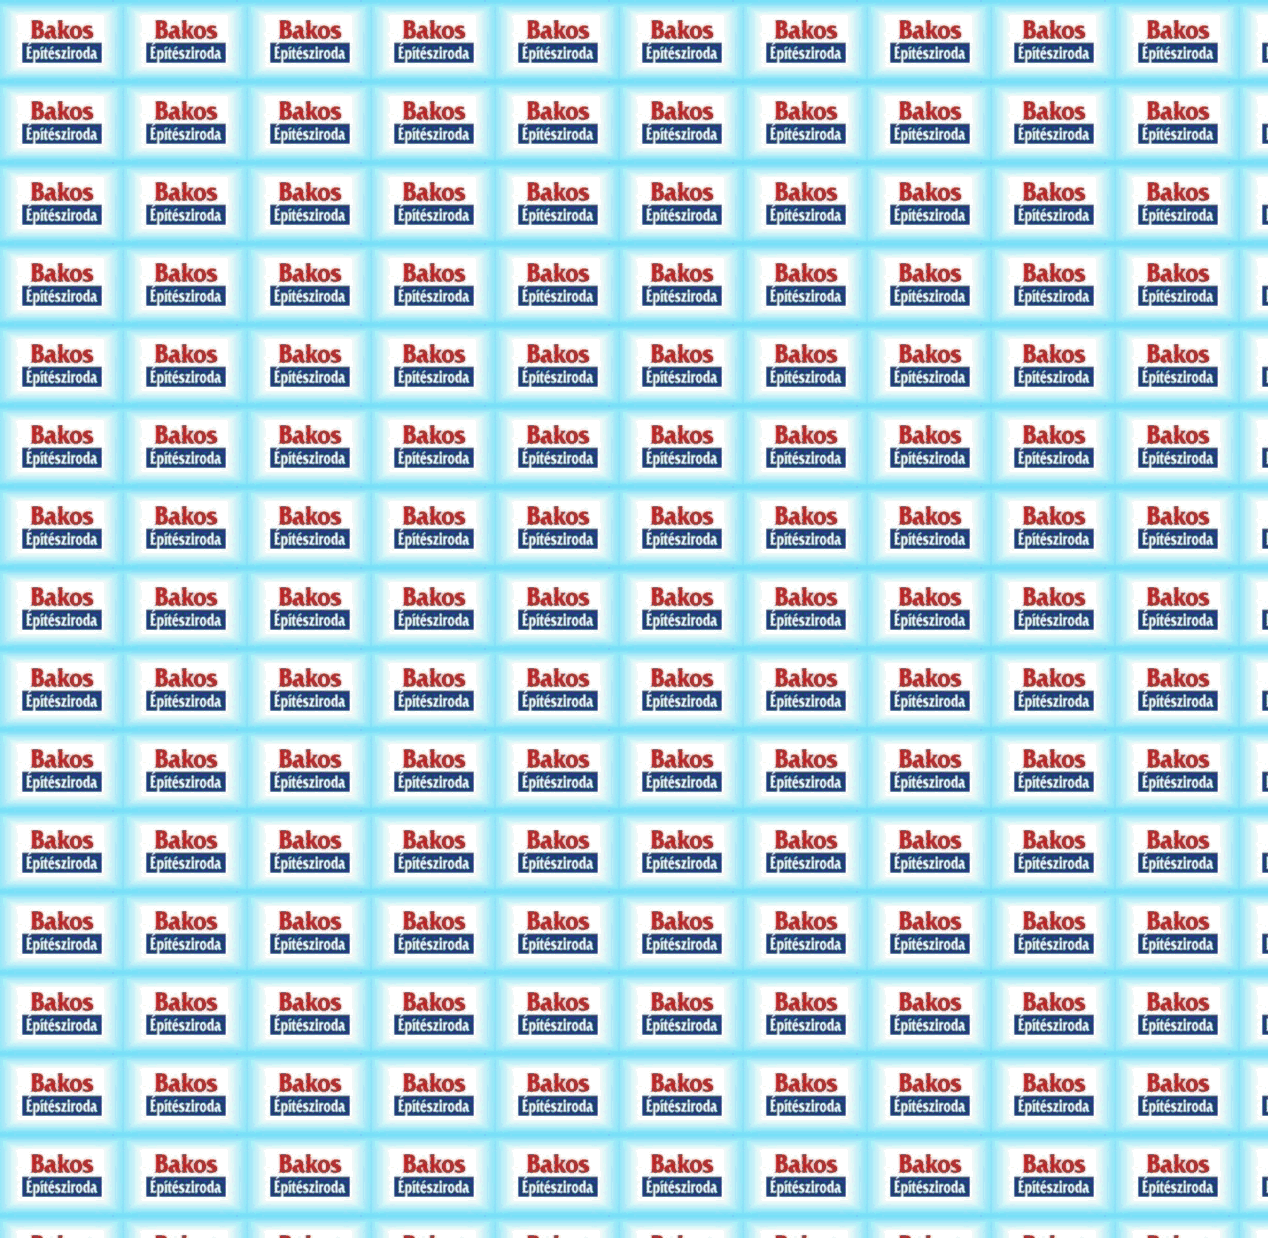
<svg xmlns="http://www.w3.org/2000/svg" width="1268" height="1238">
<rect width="100%" height="100%" fill="#fff"/>
<image x="0" y="0" width="1268" height="1238" href="media/1.png"/>
</svg>
